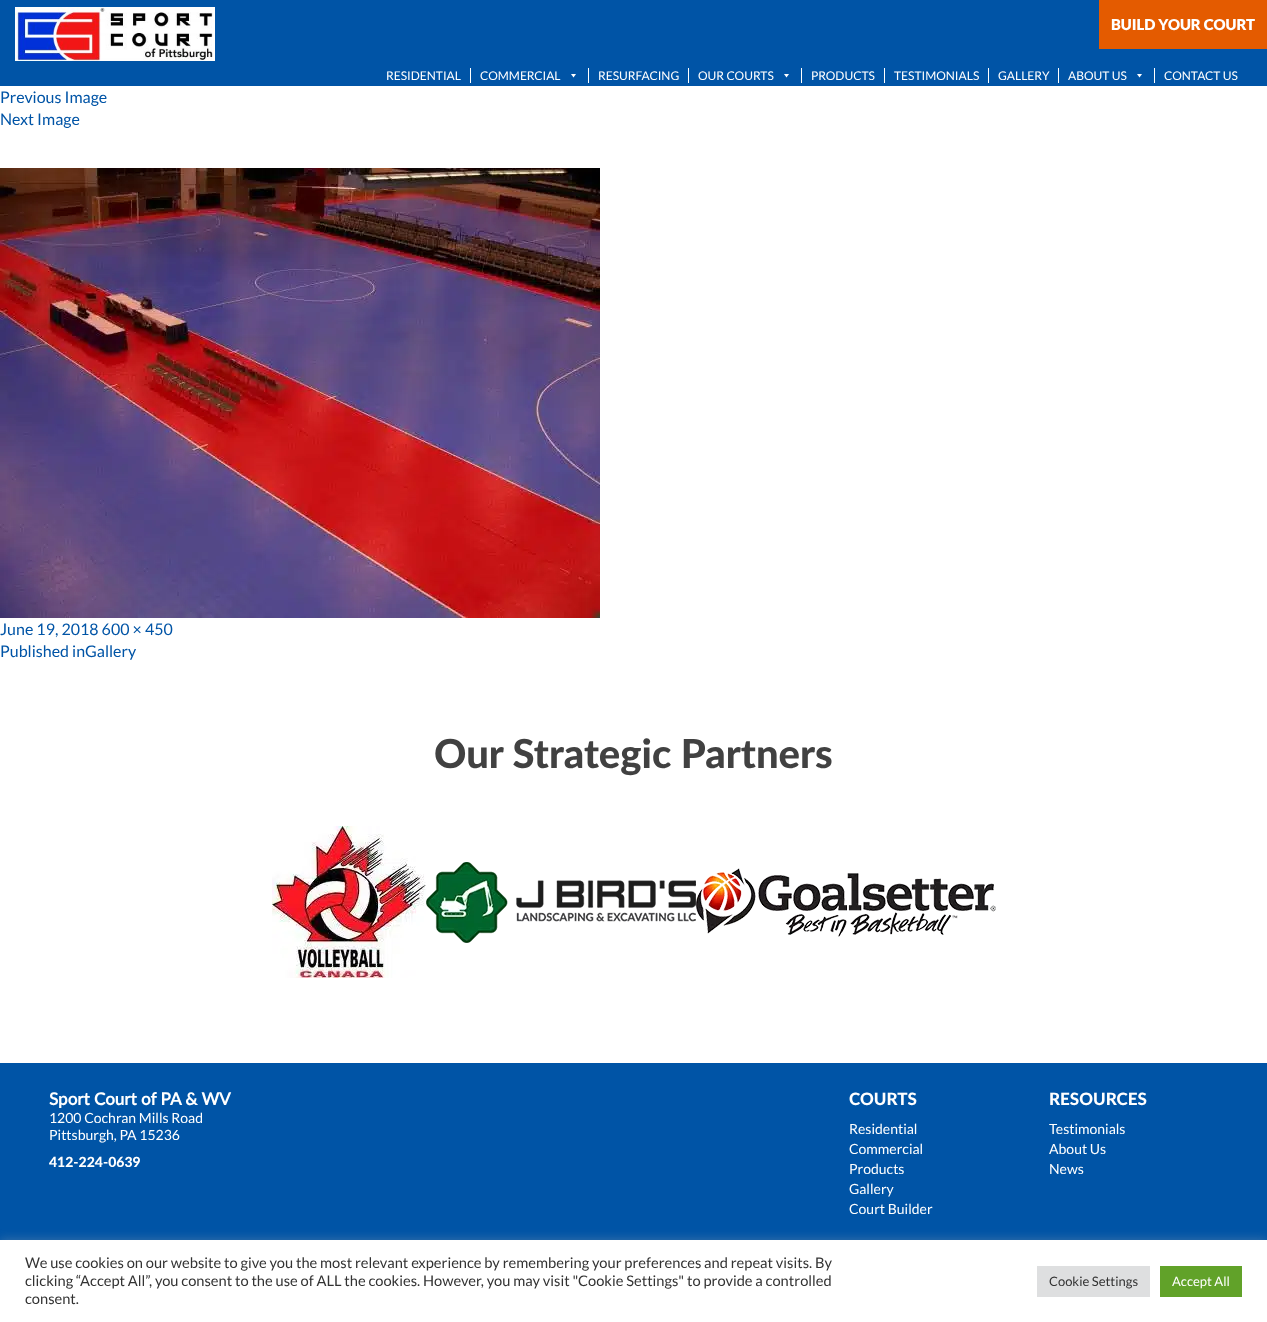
<svg xmlns="http://www.w3.org/2000/svg" width="1267" height="1322">
<rect width="100%" height="100%" fill="#fff"/>
<rect width="1267" height="86" fill="#0054a6"/>
<image x="15" y="7" width="200" height="54" href="media/1.png"/>
<rect x="1099" width="168" height="49" fill="#e45b00"/>
<text x="1111" y="30" style="font-family:Lato;font-size:15px;font-weight:900;fill:#fff">BUILD YOUR COURT</text>
<rect x="470" y="68" width="1" height="15" fill="#fff"/>
<text x="386" y="80" style="font-family:Lato;font-size:12px;fill:#fff">RESIDENTIAL</text>
<rect x="588" y="68" width="1" height="15" fill="#fff"/>
<text x="480" y="80" style="font-family:Lato;font-size:12px;fill:#fff">COMMERCIAL</text>
<path d="M576 74l-2.5 3.5l-2.5-3.5z" fill="#fff"/>
<rect x="688" y="68" width="1" height="15" fill="#fff"/>
<text x="598" y="80" style="font-family:Lato;font-size:12px;fill:#fff">RESURFACING</text>
<rect x="801" y="68" width="1" height="15" fill="#fff"/>
<text x="698" y="80" style="font-family:Lato;font-size:12px;fill:#fff">OUR COURTS</text>
<path d="M789 74l-2.5 3.5l-2.5-3.5z" fill="#fff"/>
<rect x="884" y="68" width="1" height="15" fill="#fff"/>
<text x="811" y="80" style="font-family:Lato;font-size:12px;fill:#fff">PRODUCTS</text>
<rect x="988" y="68" width="1" height="15" fill="#fff"/>
<text x="894" y="80" style="font-family:Lato;font-size:12px;fill:#fff">TESTIMONIALS</text>
<rect x="1058" y="68" width="1" height="15" fill="#fff"/>
<text x="998" y="80" style="font-family:Lato;font-size:12px;fill:#fff">GALLERY</text>
<rect x="1154" y="68" width="1" height="15" fill="#fff"/>
<text x="1068" y="80" style="font-family:Lato;font-size:12px;fill:#fff">ABOUT US</text>
<path d="M1142 74l-2.5 3.5l-2.5-3.5z" fill="#fff"/>
<text x="1164" y="80" style="font-family:Lato;font-size:12px;fill:#fff">CONTACT US</text>
<text x="0" y="103" style="font-family:Lato;font-size:16px;fill:#0054a6">Previous Image</text>
<text x="0" y="125" style="font-family:Lato;font-size:16px;fill:#0054a6">Next Image</text>
<image x="0" y="168" width="600" height="450" href="media/2.png"/>
<text x="0" y="635" style="font-family:Lato;font-size:16px;fill:#0054a6">June 19, 2018 600 × 450</text>
<text x="0" y="657" style="font-family:Lato;font-size:16px;fill:#0054a6">Published inGallery</text>
<text x="434" y="768" style="font-family:'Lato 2';font-size:40px;font-weight:900;fill:#414141">Our Strategic Partners</text>
<image x="272" y="826" width="154" height="152" href="media/3.png"/>
<image x="426" y="862" width="270" height="81" href="media/4.png"/>
<image x="696" y="868" width="300" height="69" href="media/5.png"/>
<rect y="1063" width="1267" height="177" fill="#0054a6"/>
<text x="49" y="1105" style="font-family:Lato;font-size:17px;font-weight:bold;fill:#fff">Sport Court of PA &amp; WV</text>
<text x="49" y="1123" style="font-family:Lato;font-size:14px;fill:#fff">1200 Cochran Mills Road</text>
<text x="49" y="1140" style="font-family:Lato;font-size:14px;fill:#fff">Pittsburgh, PA 15236</text>
<text x="49" y="1167" style="font-family:'Lato 2';font-size:14px;font-weight:900;fill:#fff">412-224-0639</text>
<text x="849" y="1105" style="font-family:'Lato 2';font-size:17px;font-weight:900;fill:#fff">COURTS</text>
<text x="849" y="1134" style="font-family:Lato;font-size:14px;fill:#fff">Residential</text>
<text x="849" y="1154" style="font-family:Lato;font-size:14px;fill:#fff">Commercial</text>
<text x="849" y="1174" style="font-family:Lato;font-size:14px;fill:#fff">Products</text>
<text x="849" y="1194" style="font-family:Lato;font-size:14px;fill:#fff">Gallery</text>
<text x="849" y="1214" style="font-family:Lato;font-size:14px;fill:#fff">Court Builder</text>
<text x="1049" y="1105" style="font-family:'Lato 2';font-size:17px;font-weight:900;fill:#fff">RESOURCES</text>
<text x="1049" y="1134" style="font-family:Lato;font-size:14px;fill:#fff">Testimonials</text>
<text x="1049" y="1154" style="font-family:Lato;font-size:14px;fill:#fff">About Us</text>
<text x="1049" y="1174" style="font-family:Lato;font-size:14px;fill:#fff">News</text>
<rect y="1239" width="1267" height="82" fill="#acabab4d" filter="blur(5px)"/>
<rect y="1240" width="1267" height="82" fill="#fff"/>
<text x="25" y="1268" style="font-family:Lato;font-size:14.67px;fill:#333">We use cookies on our website to give you the most relevant experience by remembering your preferences and repeat visits. By</text>
<text x="25" y="1286" style="font-family:Lato;font-size:14.67px;fill:#333">clicking “Accept All”, you consent to the use of ALL the cookies. However, you may visit "Cookie Settings" to provide a controlled</text>
<text x="25" y="1304" style="font-family:Lato;font-size:14.67px;fill:#333">consent.</text>
<rect x="1037" y="1266" width="113" height="31" fill="#dedfe0"/>
<text x="1049" y="1286" style="font-family:Lato;font-size:13px;fill:#333">Cookie Settings</text>
<rect x="1160" y="1266" width="82" height="31" fill="#61a229"/>
<text x="1172" y="1286" style="font-family:Lato;font-size:13px;fill:#fff">Accept All</text>
</svg>
